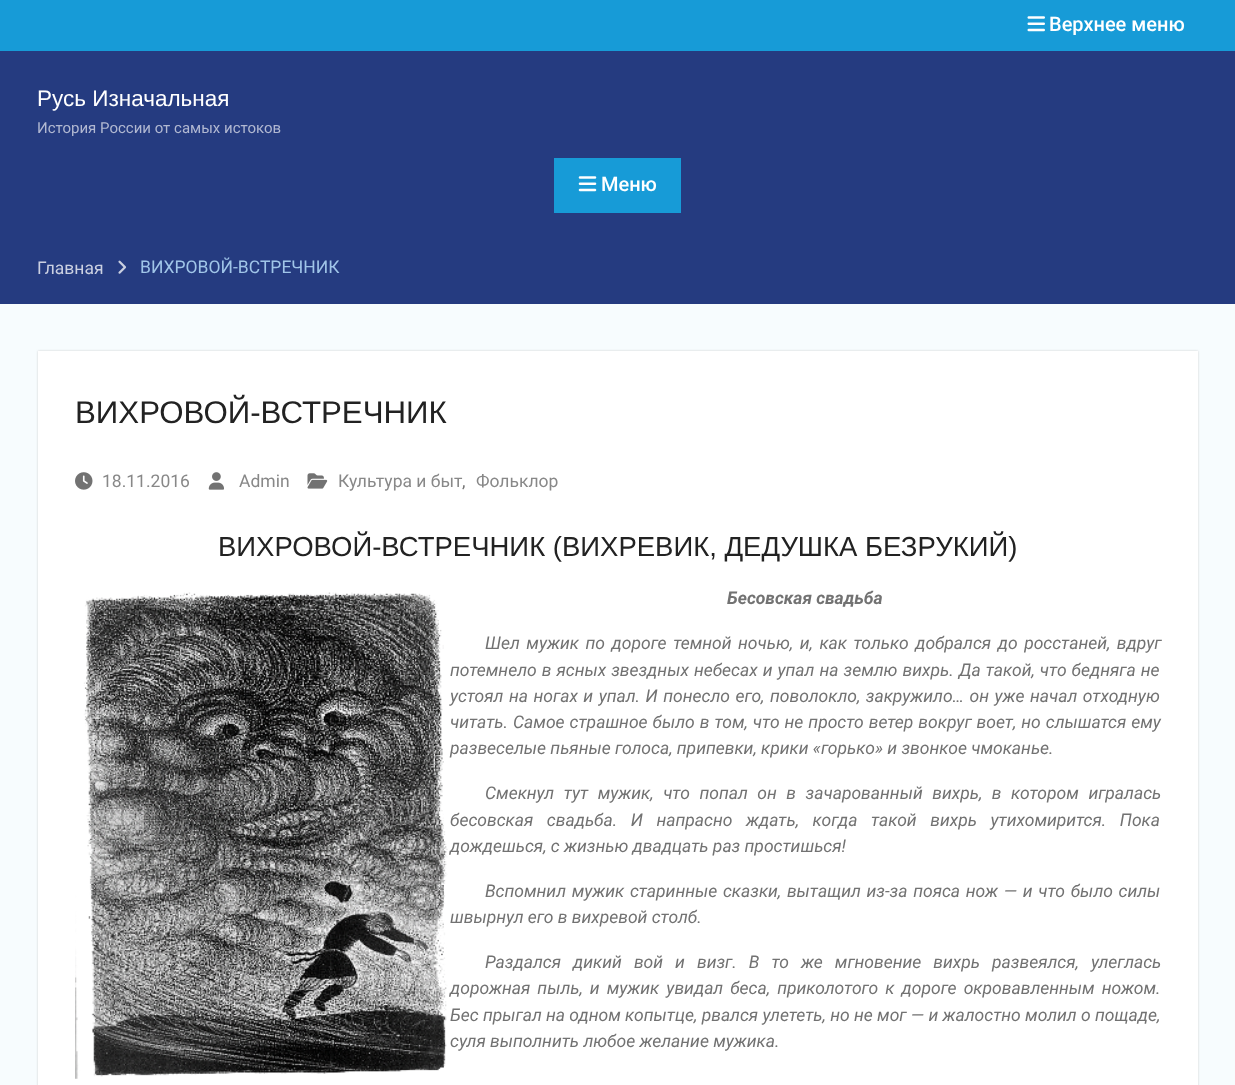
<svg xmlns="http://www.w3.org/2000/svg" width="1235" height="1085">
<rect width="100%" height="100%" fill="#f7fcfe"/>
<rect width="1235" height="51" fill="#179bd7"/>
<image x="1027" y="16" width="18" height="16" href="media/1.png"/>
<text x="1049" y="31" style="font-family:Roboto;font-size:20px;font-weight:500;fill:#fff">Верхнее меню</text>
<rect y="51" width="1235" height="253" fill="#253b80"/>
<text x="37" y="106" style="font-family:Liberation Sans;font-size:22.5px;fill:#fff">Русь Изначальная</text>
<text x="37" y="133" style="font-family:Roboto;font-size:15px;fill:#b1b8d1">История России от самых истоков</text>
<rect x="554" y="158" width="127" height="55" fill="#179bd7"/>
<image x="578" y="176" width="19" height="16" href="media/2.png"/>
<text x="601" y="191" style="font-family:Roboto;font-size:20px;font-weight:500;fill:#fff">Меню</text>
<text x="37" y="274" style="font-family:Roboto;font-size:17.5px;fill:#cbd0e1">Главная</text>
<image x="118" y="260" width="9" height="14" href="media/3.png"/>
<text x="140" y="273" style="font-family:Roboto;font-size:17.5px;fill:#a0c5e8">ВИХРОВОЙ-ВСТРЕЧНИК</text>
<rect x="38" y="351" width="1160" height="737" fill="#cfcfcf" filter="blur(1px)"/>
<rect x="38" y="351" width="1160" height="734" fill="#fff"/>
<text x="75" y="423" style="font-family:Liberation Sans;font-size:31.25px;fill:#222">ВИХРОВОЙ-ВСТРЕЧНИК</text>
<image x="75" y="472" width="18" height="18" href="media/4.png"/>
<text x="102" y="487" style="font-family:Roboto;font-size:17.5px;fill:#888">18.11.2016</text>
<image x="208" y="472" width="16" height="18" href="media/5.png"/>
<text x="239" y="487" style="font-family:Roboto;font-size:17.5px;fill:#888">Admin</text>
<image x="307" y="473" width="21" height="16" href="media/6.png"/>
<text x="338" y="487" style="font-family:Roboto;font-size:17.5px;fill:#888">Культура и быт</text>
<text x="462" y="487" style="font-family:Roboto;font-size:17.5px;fill:#727272">,</text>
<text x="476" y="487" style="font-family:Roboto;font-size:17.5px;fill:#888">Фольклор</text>
<text x="218" y="556" style="font-family:Liberation Sans;font-size:27.5px;fill:#222">ВИХРОВОЙ-ВСТРЕЧНИК (ВИХРЕВИК, ДЕДУШКА БЕЗРУКИЙ)</text>
<image x="75" y="592" width="373" height="487" href="media/7.png"/>
<text x="727" y="604" style="font-family:Roboto;font-size:17.5px;font-weight:bold;font-style:italic;fill:#727272">Бесовская свадьба</text>
<text x="485" y="649" word-spacing="2.25" style="font-family:Roboto;font-size:17.5px;font-style:italic;fill:#727272">Шел мужик по дороге темной ночью, и, как только добрался до росстаней, вдруг</text>
<text x="450" y="676" word-spacing="0.75" style="font-family:Roboto;font-size:17.5px;font-style:italic;fill:#727272">потемнело в ясных звездных небесах и упал на землю вихрь. Да такой, что бедняга не</text>
<text x="450" y="702" word-spacing="1.25" style="font-family:Roboto;font-size:17.5px;font-style:italic;fill:#727272">устоял на ногах и упал. И понесло его, поволокло, закружило… он уже начал отходную</text>
<text x="450" y="728" word-spacing="0.7" style="font-family:Roboto;font-size:17.5px;font-style:italic;fill:#727272">читать. Самое страшное было в том, что не просто ветер вокруг воет, но слышатся ему</text>
<text x="450" y="754" style="font-family:Roboto;font-size:17.5px;font-style:italic;fill:#727272">развеселые пьяные голоса, припевки, крики «горько» и звонкое чмоканье.</text>
<text x="485" y="799" word-spacing="5.25" style="font-family:Roboto;font-size:17.5px;font-style:italic;fill:#727272">Смекнул тут мужик, что попал он в зачарованный вихрь, в котором игралась</text>
<text x="450" y="826" word-spacing="9.25" style="font-family:Roboto;font-size:17.5px;font-style:italic;fill:#727272">бесовская свадьба. И напрасно ждать, когда такой вихрь утихомирится. Пока</text>
<text x="450" y="852" style="font-family:Roboto;font-size:17.5px;font-style:italic;fill:#727272">дождешься, с жизнью двадцать раз простишься!</text>
<text x="485" y="897" word-spacing="1.4" style="font-family:Roboto;font-size:17.5px;font-style:italic;fill:#727272">Вспомнил мужик старинные сказки, вытащил из-за пояса нож — и что было силы</text>
<text x="450" y="923" style="font-family:Roboto;font-size:17.5px;font-style:italic;fill:#727272">швырнул его в вихревой столб.</text>
<text x="485" y="968" word-spacing="7.75" style="font-family:Roboto;font-size:17.5px;font-style:italic;fill:#727272">Раздался дикий вой и визг. В то же мгновение вихрь развеялся, улеглась</text>
<text x="450" y="994" word-spacing="2.75" style="font-family:Roboto;font-size:17.5px;font-style:italic;fill:#727272">дорожная пыль, и мужик увидал беса, приколотого к дороге окровавленным ножом.</text>
<text x="450" y="1021" style="font-family:Roboto;font-size:17.5px;font-style:italic;fill:#727272">Бес прыгал на одном копытце, рвался улететь, но не мог — и жалостно молил о пощаде,</text>
<text x="450" y="1047" style="font-family:Roboto;font-size:17.5px;font-style:italic;fill:#727272">суля выполнить любое желание мужика.</text>
</svg>
